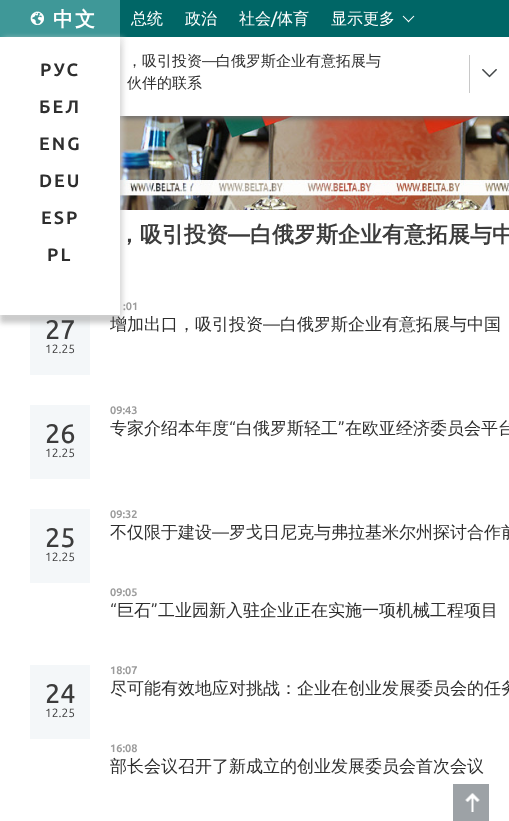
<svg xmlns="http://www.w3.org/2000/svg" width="509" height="821">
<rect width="100%" height="100%" fill="#fff"/>
<image x="120" y="116" width="389" height="94" href="media/4.png"/>
<rect y="40" width="509" height="79" fill="#646464cc" filter="blur(2px)"/>
<rect x="120" width="389" height="37" fill="#066"/>
<rect width="120" height="37" fill="#3f9898"/>
<image x="30" y="11" width="14" height="14" href="media/1.png"/>
<text x="53" y="26" style="font-family:WenQuanYi Zen Hei;font-size:20px;font-weight:bold;letter-spacing:2px;fill:#fff">中文</text>
<rect x="120" y="37" width="389" height="79" fill="#fff"/>
<rect x="30" y="315" width="60" height="60" fill="#f4f7f9"/>
<rect y="45" width="120" height="278" fill="#98989880" filter="blur(2.5px)"/>
<rect x="4" y="37" width="120" height="278" fill="#d4d4d480" filter="blur(2.5px)"/>
<rect y="37" width="120" height="278" fill="#fff"/>
<text x="40" y="76" style="font-family:Ubuntu;font-size:18px;font-weight:bold;letter-spacing:2px;fill:#2e2e2e">РУС</text>
<text x="39" y="113" style="font-family:Ubuntu;font-size:18px;font-weight:bold;letter-spacing:2px;fill:#2e2e2e">БЕЛ</text>
<text x="39" y="150" style="font-family:Ubuntu;font-size:18px;font-weight:bold;letter-spacing:2px;fill:#2e2e2e">ENG</text>
<text x="39" y="187" style="font-family:Ubuntu;font-size:18px;font-weight:bold;letter-spacing:2px;fill:#2e2e2e">DEU</text>
<text x="41" y="224" style="font-family:Ubuntu;font-size:18px;font-weight:bold;letter-spacing:2px;fill:#2e2e2e">ESP</text>
<text x="47" y="261" style="font-family:Ubuntu;font-size:18px;font-weight:bold;letter-spacing:2px;fill:#2e2e2e">PL</text>
<text x="131" y="24" style="font-family:WenQuanYi Zen Hei;font-size:16px;font-weight:500;fill:#fff">总统</text>
<text x="185" y="24" style="font-family:WenQuanYi Zen Hei;font-size:16px;font-weight:500;fill:#fff">政治</text>
<text x="239" y="24" style="font-family:WenQuanYi Zen Hei;font-size:16px;font-weight:500;fill:#fff">社会</text>
<text x="271" y="24" style="font-family:Ubuntu;font-size:16px;font-weight:500;fill:#fff">/</text>
<text x="277" y="24" style="font-family:WenQuanYi Zen Hei;font-size:16px;font-weight:500;fill:#fff">体育</text>
<text x="331" y="24" style="font-family:WenQuanYi Zen Hei;font-size:16px;font-weight:500;fill:#fff">显示更多</text>
<image x="402" y="15" width="13" height="8" href="media/2.png"/>
<text x="127" y="66" style="font-family:WenQuanYi Zen Hei;font-size:15px;font-weight:500;fill:#2e2e2e">，吸引投资</text>
<text x="202" y="66" style="font-family:Ubuntu;font-size:15px;fill:#2e2e2e">—</text>
<text x="216" y="66" style="font-family:WenQuanYi Zen Hei;font-size:15px;font-weight:500;fill:#2e2e2e">白俄罗斯企业有意拓展与</text>
<text x="127" y="88" style="font-family:WenQuanYi Zen Hei;font-size:15px;font-weight:500;fill:#2e2e2e">伙伴的联系</text>
<image x="482" y="69" width="15" height="9" href="media/3.png"/>
<rect x="469" y="55" width="1" height="38" fill="#c8c8c8"/>
<text x="118" y="242" style="font-family:WenQuanYi Zen Hei;font-size:22px;font-weight:bold;fill:#3c3c3c">，吸引投资</text>
<text x="228" y="242" style="font-family:Ubuntu;font-size:22px;font-weight:bold;fill:#3c3c3c">—</text>
<text x="250" y="242" style="font-family:WenQuanYi Zen Hei;font-size:22px;font-weight:bold;fill:#3c3c3c">白俄罗斯企业有意拓展与中</text>
<text x="45" y="339" style="font-family:Ubuntu;font-size:27px;font-weight:500;fill:#3c3c3c">27</text>
<text x="45" y="353" style="font-family:Ubuntu;font-size:12px;fill:#3c3c3c">12.25</text>
<text x="123" y="310" style="font-family:Ubuntu;font-size:11px;font-weight:bold;fill:#9b9b9b">:01</text>
<text x="110" y="330" style="font-family:WenQuanYi Zen Hei;font-size:17px;font-weight:500;fill:#2e2e2e">增加出口，吸引投资</text>
<text x="263" y="330" style="font-family:Ubuntu;font-size:17px;fill:#2e2e2e">—</text>
<text x="280" y="330" style="font-family:WenQuanYi Zen Hei;font-size:17px;font-weight:500;fill:#2e2e2e">白俄罗斯企业有意拓展与中国</text>
<rect x="30" y="405" width="60" height="74" fill="#f4f7f9"/>
<text x="45" y="443" style="font-family:Ubuntu;font-size:27px;font-weight:500;fill:#3c3c3c">26</text>
<text x="45" y="457" style="font-family:Ubuntu;font-size:12px;fill:#3c3c3c">12.25</text>
<text x="110" y="414" style="font-family:Ubuntu;font-size:11px;font-weight:bold;fill:#9b9b9b">09:43</text>
<text x="110" y="434" style="font-family:WenQuanYi Zen Hei;font-size:17px;font-weight:500;fill:#2e2e2e">专家介绍本年度</text>
<text x="229" y="434" style="font-family:Ubuntu;font-size:17px;fill:#2e2e2e">“</text>
<text x="236" y="434" style="font-family:WenQuanYi Zen Hei;font-size:17px;font-weight:500;fill:#2e2e2e">白俄罗斯轻工</text>
<text x="338" y="434" style="font-family:Ubuntu;font-size:17px;fill:#2e2e2e">”</text>
<text x="345" y="434" style="font-family:WenQuanYi Zen Hei;font-size:17px;font-weight:500;fill:#2e2e2e">在欧亚经济委员会平台</text>
<rect x="30" y="509" width="60" height="74" fill="#f4f7f9"/>
<text x="45" y="547" style="font-family:Ubuntu;font-size:27px;font-weight:500;fill:#3c3c3c">25</text>
<text x="45" y="561" style="font-family:Ubuntu;font-size:12px;fill:#3c3c3c">12.25</text>
<text x="110" y="518" style="font-family:Ubuntu;font-size:11px;font-weight:bold;fill:#9b9b9b">09:32</text>
<text x="110" y="538" style="font-family:WenQuanYi Zen Hei;font-size:17px;font-weight:500;fill:#2e2e2e">不仅限于建设</text>
<text x="212" y="538" style="font-family:Ubuntu;font-size:17px;fill:#2e2e2e">—</text>
<text x="229" y="538" style="font-family:WenQuanYi Zen Hei;font-size:17px;font-weight:500;fill:#2e2e2e">罗戈日尼克与弗拉基米尔州探讨合作前</text>
<text x="110" y="596" style="font-family:Ubuntu;font-size:11px;font-weight:bold;fill:#9b9b9b">09:05</text>
<text x="110" y="616" style="font-family:Ubuntu;font-size:17px;fill:#2e2e2e">“</text>
<text x="117" y="616" style="font-family:WenQuanYi Zen Hei;font-size:17px;font-weight:500;fill:#2e2e2e">巨石</text>
<text x="151" y="616" style="font-family:Ubuntu;font-size:17px;fill:#2e2e2e">”</text>
<text x="158" y="616" style="font-family:WenQuanYi Zen Hei;font-size:17px;font-weight:500;fill:#2e2e2e">工业园新入驻企业正在实施一项机械工程项目</text>
<rect x="30" y="665" width="60" height="74" fill="#f4f7f9"/>
<text x="45" y="703" style="font-family:Ubuntu;font-size:27px;font-weight:500;fill:#3c3c3c">24</text>
<text x="45" y="717" style="font-family:Ubuntu;font-size:12px;fill:#3c3c3c">12.25</text>
<text x="110" y="674" style="font-family:Ubuntu;font-size:11px;font-weight:bold;fill:#9b9b9b">18:07</text>
<text x="110" y="694" style="font-family:WenQuanYi Zen Hei;font-size:17px;font-weight:500;fill:#2e2e2e">尽可能有效地应对挑战：企业在创业发展委员会的任务</text>
<text x="110" y="752" style="font-family:Ubuntu;font-size:11px;font-weight:bold;fill:#9b9b9b">16:08</text>
<text x="110" y="772" style="font-family:WenQuanYi Zen Hei;font-size:17px;font-weight:500;fill:#2e2e2e">部长会议召开了新成立的创业发展委员会首次会议</text>
<image x="453" y="784" width="36" height="37" href="media/5.png"/>
</svg>
